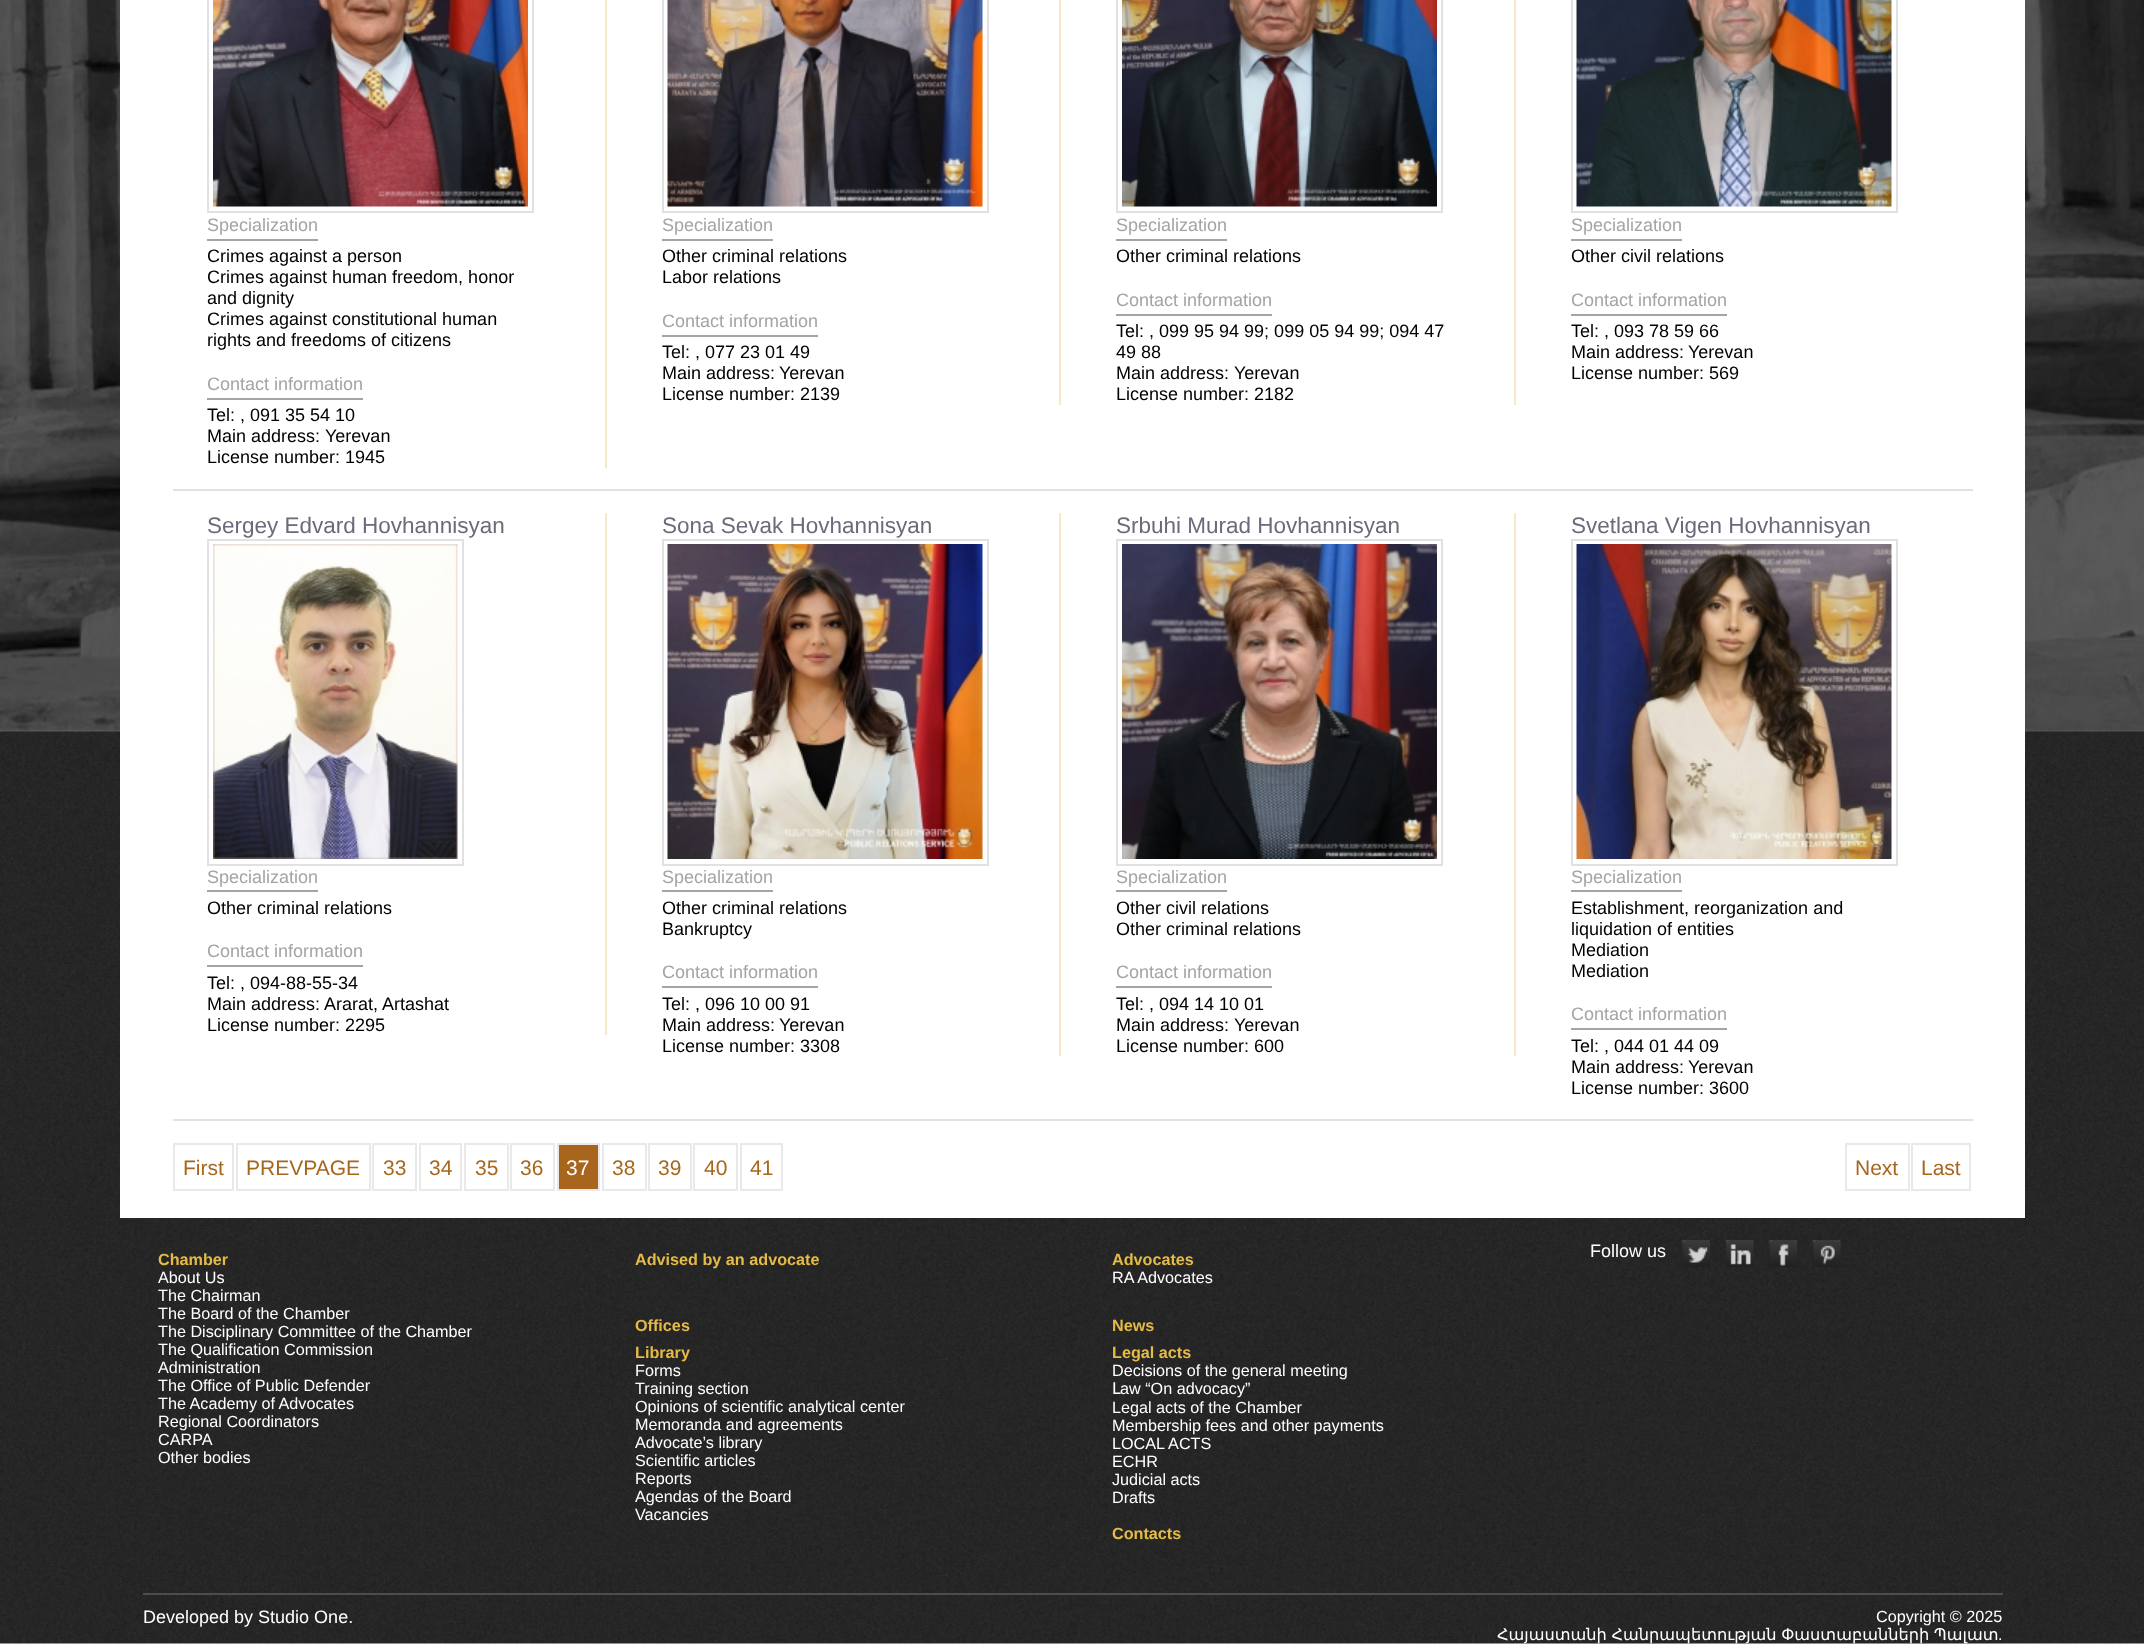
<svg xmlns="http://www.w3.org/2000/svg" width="2144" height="1644">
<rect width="100%" height="100%" fill="#fff"/>
<image x="0" y="731" width="2144" height="913" href="media/1.png"/>
<image x="0" y="0" width="2144" height="732" href="media/2.png"/>
<rect x="120" width="1905" height="1218" fill="#fff"/>
<rect x="605" width="2" height="468" fill="#f7e8ca"/>
<rect x="208" y="-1" width="325" height="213" fill="none" stroke="#e1e1e1" stroke-width="2"/>
<image x="213" y="0" width="315" height="207" href="media/3.png"/>
<rect x="207" y="239" width="111" height="2" fill="#a4a4a4"/>
<text x="207" y="231" style="font-family:Liberation Sans;font-size:18px;fill:#a4a4a4">Specialization</text>
<text x="207" y="262" style="font-family:Liberation Sans;font-size:18px;fill:#000">Crimes against a person</text>
<text x="207" y="283" style="font-family:Liberation Sans;font-size:18px;fill:#000">Crimes against human freedom, honor</text>
<text x="207" y="304" style="font-family:Liberation Sans;font-size:18px;fill:#000">and dignity</text>
<text x="207" y="325" style="font-family:Liberation Sans;font-size:18px;fill:#000">Crimes against constitutional human</text>
<text x="207" y="346" style="font-family:Liberation Sans;font-size:18px;fill:#000">rights and freedoms of citizens</text>
<rect x="207" y="398" width="156" height="2" fill="#a4a4a4"/>
<text x="207" y="390" style="font-family:Liberation Sans;font-size:18px;fill:#a4a4a4">Contact information</text>
<text x="207" y="421" style="font-family:Liberation Sans;font-size:18px;fill:#000">Tel: , 091 35 54 10</text>
<text x="207" y="442" style="font-family:Liberation Sans;font-size:18px;fill:#000">Main address:</text>
<text x="325" y="442" style="font-family:Liberation Sans;font-size:18px;fill:#000">Yerevan</text>
<text x="207" y="463" style="font-family:Liberation Sans;font-size:18px;fill:#000">License number: 1945</text>
<rect x="1059" width="2" height="405" fill="#f7e8ca"/>
<rect x="663" y="-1" width="325" height="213" fill="none" stroke="#e1e1e1" stroke-width="2"/>
<image x="667" y="0" width="316" height="207" href="media/4.png"/>
<rect x="662" y="239" width="111" height="2" fill="#a4a4a4"/>
<text x="662" y="231" style="font-family:Liberation Sans;font-size:18px;fill:#a4a4a4">Specialization</text>
<text x="662" y="262" style="font-family:Liberation Sans;font-size:18px;fill:#000">Other criminal relations</text>
<text x="662" y="283" style="font-family:Liberation Sans;font-size:18px;fill:#000">Labor relations</text>
<rect x="662" y="335" width="156" height="2" fill="#a4a4a4"/>
<text x="662" y="327" style="font-family:Liberation Sans;font-size:18px;fill:#a4a4a4">Contact information</text>
<text x="662" y="358" style="font-family:Liberation Sans;font-size:18px;fill:#000">Tel: , 077 23 01 49</text>
<text x="662" y="379" style="font-family:Liberation Sans;font-size:18px;fill:#000">Main address:</text>
<text x="779" y="379" style="font-family:Liberation Sans;font-size:18px;fill:#000">Yerevan</text>
<text x="662" y="400" style="font-family:Liberation Sans;font-size:18px;fill:#000">License number: 2139</text>
<rect x="1514" width="2" height="405" fill="#f7e8ca"/>
<rect x="1117" y="-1" width="325" height="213" fill="none" stroke="#e1e1e1" stroke-width="2"/>
<image x="1122" y="0" width="315" height="207" href="media/5.png"/>
<rect x="1116" y="239" width="111" height="2" fill="#a4a4a4"/>
<text x="1116" y="231" style="font-family:Liberation Sans;font-size:18px;fill:#a4a4a4">Specialization</text>
<text x="1116" y="262" style="font-family:Liberation Sans;font-size:18px;fill:#000">Other criminal relations</text>
<rect x="1116" y="314" width="156" height="2" fill="#a4a4a4"/>
<text x="1116" y="306" style="font-family:Liberation Sans;font-size:18px;fill:#a4a4a4">Contact information</text>
<text x="1116" y="337" style="font-family:Liberation Sans;font-size:18px;fill:#000">Tel: , 099 95 94 99; 099 05 94 99; 094 47</text>
<text x="1116" y="358" style="font-family:Liberation Sans;font-size:18px;fill:#000">49 88</text>
<text x="1116" y="379" style="font-family:Liberation Sans;font-size:18px;fill:#000">Main address:</text>
<text x="1234" y="379" style="font-family:Liberation Sans;font-size:18px;fill:#000">Yerevan</text>
<text x="1116" y="400" style="font-family:Liberation Sans;font-size:18px;fill:#000">License number: 2182</text>
<rect x="1572" y="-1" width="325" height="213" fill="none" stroke="#e1e1e1" stroke-width="2"/>
<image x="1576" y="0" width="316" height="207" href="media/6.png"/>
<rect x="1571" y="239" width="111" height="2" fill="#a4a4a4"/>
<text x="1571" y="231" style="font-family:Liberation Sans;font-size:18px;fill:#a4a4a4">Specialization</text>
<text x="1571" y="262" style="font-family:Liberation Sans;font-size:18px;fill:#000">Other civil relations</text>
<rect x="1571" y="314" width="156" height="2" fill="#a4a4a4"/>
<text x="1571" y="306" style="font-family:Liberation Sans;font-size:18px;fill:#a4a4a4">Contact information</text>
<text x="1571" y="337" style="font-family:Liberation Sans;font-size:18px;fill:#000">Tel: , 093 78 59 66</text>
<text x="1571" y="358" style="font-family:Liberation Sans;font-size:18px;fill:#000">Main address:</text>
<text x="1688" y="358" style="font-family:Liberation Sans;font-size:18px;fill:#000">Yerevan</text>
<text x="1571" y="379" style="font-family:Liberation Sans;font-size:18px;fill:#000">License number: 569</text>
<rect x="173" y="489" width="1800" height="2" fill="#e1e1e1"/>
<rect x="605" y="513" width="2" height="522" fill="#f7e8ca"/>
<text x="207" y="533" style="font-family:Liberation Sans;font-size:22.5px;fill:#6a6a7a">Sergey Edvard Hovhannisyan</text>
<rect x="208" y="540" width="255" height="325" fill="none" stroke="#e1e1e1" stroke-width="2"/>
<image x="213" y="544" width="245" height="315" href="media/7.png"/>
<rect x="207" y="890" width="111" height="2" fill="#a4a4a4"/>
<text x="207" y="883" style="font-family:Liberation Sans;font-size:18px;fill:#a4a4a4">Specialization</text>
<text x="207" y="914" style="font-family:Liberation Sans;font-size:18px;fill:#000">Other criminal relations</text>
<rect x="207" y="965" width="156" height="2" fill="#a4a4a4"/>
<text x="207" y="957" style="font-family:Liberation Sans;font-size:18px;fill:#a4a4a4">Contact information</text>
<text x="207" y="989" style="font-family:Liberation Sans;font-size:18px;fill:#000">Tel: , 094-88-55-34</text>
<text x="207" y="1010" style="font-family:Liberation Sans;font-size:18px;fill:#000">Main address:</text>
<text x="324" y="1010" style="font-family:Liberation Sans;font-size:18px;fill:#000">Ararat, Artashat</text>
<text x="207" y="1031" style="font-family:Liberation Sans;font-size:18px;fill:#000">License number: 2295</text>
<rect x="1059" y="513" width="2" height="543" fill="#f7e8ca"/>
<text x="662" y="533" style="font-family:Liberation Sans;font-size:22.5px;fill:#6a6a7a">Sona Sevak Hovhannisyan</text>
<rect x="663" y="540" width="325" height="325" fill="none" stroke="#e1e1e1" stroke-width="2"/>
<image x="667" y="544" width="316" height="315" href="media/8.png"/>
<rect x="662" y="890" width="111" height="2" fill="#a4a4a4"/>
<text x="662" y="883" style="font-family:Liberation Sans;font-size:18px;fill:#a4a4a4">Specialization</text>
<text x="662" y="914" style="font-family:Liberation Sans;font-size:18px;fill:#000">Other criminal relations</text>
<text x="662" y="935" style="font-family:Liberation Sans;font-size:18px;fill:#000">Bankruptcy</text>
<rect x="662" y="986" width="156" height="2" fill="#a4a4a4"/>
<text x="662" y="978" style="font-family:Liberation Sans;font-size:18px;fill:#a4a4a4">Contact information</text>
<text x="662" y="1010" style="font-family:Liberation Sans;font-size:18px;fill:#000">Tel: , 096 10 00 91</text>
<text x="662" y="1031" style="font-family:Liberation Sans;font-size:18px;fill:#000">Main address:</text>
<text x="779" y="1031" style="font-family:Liberation Sans;font-size:18px;fill:#000">Yerevan</text>
<text x="662" y="1052" style="font-family:Liberation Sans;font-size:18px;fill:#000">License number: 3308</text>
<rect x="1514" y="513" width="2" height="543" fill="#f7e8ca"/>
<text x="1116" y="533" style="font-family:Liberation Sans;font-size:22.5px;fill:#6a6a7a">Srbuhi Murad Hovhannisyan</text>
<rect x="1117" y="540" width="325" height="325" fill="none" stroke="#e1e1e1" stroke-width="2"/>
<image x="1122" y="544" width="315" height="315" href="media/9.png"/>
<rect x="1116" y="890" width="111" height="2" fill="#a4a4a4"/>
<text x="1116" y="883" style="font-family:Liberation Sans;font-size:18px;fill:#a4a4a4">Specialization</text>
<text x="1116" y="914" style="font-family:Liberation Sans;font-size:18px;fill:#000">Other civil relations</text>
<text x="1116" y="935" style="font-family:Liberation Sans;font-size:18px;fill:#000">Other criminal relations</text>
<rect x="1116" y="986" width="156" height="2" fill="#a4a4a4"/>
<text x="1116" y="978" style="font-family:Liberation Sans;font-size:18px;fill:#a4a4a4">Contact information</text>
<text x="1116" y="1010" style="font-family:Liberation Sans;font-size:18px;fill:#000">Tel: , 094 14 10 01</text>
<text x="1116" y="1031" style="font-family:Liberation Sans;font-size:18px;fill:#000">Main address:</text>
<text x="1234" y="1031" style="font-family:Liberation Sans;font-size:18px;fill:#000">Yerevan</text>
<text x="1116" y="1052" style="font-family:Liberation Sans;font-size:18px;fill:#000">License number: 600</text>
<text x="1571" y="533" style="font-family:Liberation Sans;font-size:22.5px;fill:#6a6a7a">Svetlana Vigen Hovhannisyan</text>
<rect x="1572" y="540" width="325" height="325" fill="none" stroke="#e1e1e1" stroke-width="2"/>
<image x="1576" y="544" width="316" height="315" href="media/10.png"/>
<rect x="1571" y="890" width="111" height="2" fill="#a4a4a4"/>
<text x="1571" y="883" style="font-family:Liberation Sans;font-size:18px;fill:#a4a4a4">Specialization</text>
<text x="1571" y="914" style="font-family:Liberation Sans;font-size:18px;fill:#000">Establishment, reorganization and</text>
<text x="1571" y="935" style="font-family:Liberation Sans;font-size:18px;fill:#000">liquidation of entities</text>
<text x="1571" y="956" style="font-family:Liberation Sans;font-size:18px;fill:#000">Mediation</text>
<text x="1571" y="977" style="font-family:Liberation Sans;font-size:18px;fill:#000">Mediation</text>
<rect x="1571" y="1028" width="156" height="2" fill="#a4a4a4"/>
<text x="1571" y="1020" style="font-family:Liberation Sans;font-size:18px;fill:#a4a4a4">Contact information</text>
<text x="1571" y="1052" style="font-family:Liberation Sans;font-size:18px;fill:#000">Tel: , 044 01 44 09</text>
<text x="1571" y="1073" style="font-family:Liberation Sans;font-size:18px;fill:#000">Main address:</text>
<text x="1688" y="1073" style="font-family:Liberation Sans;font-size:18px;fill:#000">Yerevan</text>
<text x="1571" y="1094" style="font-family:Liberation Sans;font-size:18px;fill:#000">License number: 3600</text>
<rect x="173" y="1119" width="1800" height="2" fill="#e1e1e1"/>
<rect x="174" y="1144" width="59" height="46" fill="none" stroke="#e9e9e9" stroke-width="2"/>
<text x="183" y="1175" style="font-family:Liberation Sans;font-size:21px;fill:#a8661d">First</text>
<rect x="237" y="1144" width="133" height="46" fill="none" stroke="#e9e9e9" stroke-width="2"/>
<text x="246" y="1175" style="font-family:Liberation Sans;font-size:21px;fill:#a8661d">PREVPAGE</text>
<rect x="373" y="1144" width="43" height="46" fill="none" stroke="#e9e9e9" stroke-width="2"/>
<text x="383" y="1175" style="font-family:Liberation Sans;font-size:21px;fill:#a8661d">33</text>
<rect x="420" y="1144" width="41" height="46" fill="none" stroke="#e9e9e9" stroke-width="2"/>
<text x="429" y="1175" style="font-family:Liberation Sans;font-size:21px;fill:#a8661d">34</text>
<rect x="465" y="1144" width="43" height="46" fill="none" stroke="#e9e9e9" stroke-width="2"/>
<text x="475" y="1175" style="font-family:Liberation Sans;font-size:21px;fill:#a8661d">35</text>
<rect x="511" y="1144" width="43" height="46" fill="none" stroke="#e9e9e9" stroke-width="2"/>
<text x="520" y="1175" style="font-family:Liberation Sans;font-size:21px;fill:#a8661d">36</text>
<rect x="558" y="1144" width="41" height="46" fill="#a8661d" stroke="#e9e9e9" stroke-width="2"/>
<text x="566" y="1175" style="font-family:Liberation Sans;font-size:21px;fill:#fff">37</text>
<rect x="603" y="1144" width="43" height="46" fill="none" stroke="#e9e9e9" stroke-width="2"/>
<text x="612" y="1175" style="font-family:Liberation Sans;font-size:21px;fill:#a8661d">38</text>
<rect x="649" y="1144" width="42" height="46" fill="none" stroke="#e9e9e9" stroke-width="2"/>
<text x="658" y="1175" style="font-family:Liberation Sans;font-size:21px;fill:#a8661d">39</text>
<rect x="694" y="1144" width="43" height="46" fill="none" stroke="#e9e9e9" stroke-width="2"/>
<text x="704" y="1175" style="font-family:Liberation Sans;font-size:21px;fill:#a8661d">40</text>
<rect x="741" y="1144" width="41" height="46" fill="none" stroke="#e9e9e9" stroke-width="2"/>
<text x="750" y="1175" style="font-family:Liberation Sans;font-size:21px;fill:#a8661d">41</text>
<rect x="1846" y="1144" width="63" height="46" fill="none" stroke="#e9e9e9" stroke-width="2"/>
<text x="1855" y="1175" style="font-family:Liberation Sans;font-size:21px;fill:#a8661d">Next</text>
<rect x="1912" y="1144" width="58" height="46" fill="none" stroke="#e9e9e9" stroke-width="2"/>
<text x="1921" y="1175" style="font-family:Liberation Sans;font-size:21px;fill:#a8661d">Last</text>
<text x="1590" y="1257" style="font-family:Liberation Sans;font-size:18px;fill:#fff">Follow us</text>
<image x="1681" y="1240" width="29" height="27" href="media/11.png"/>
<image x="1725" y="1240" width="29" height="27" href="media/12.png"/>
<image x="1768" y="1240" width="29" height="27" href="media/13.png"/>
<image x="1812" y="1240" width="29" height="27" href="media/14.png"/>
<text x="158" y="1265" style="font-family:Liberation Sans;font-size:16.2px;font-weight:bold;fill:#e5bb46">Chamber</text>
<text x="158" y="1283" style="font-family:Liberation Sans;font-size:16.2px;fill:#fff">About Us</text>
<text x="158" y="1301" style="font-family:Liberation Sans;font-size:16.2px;fill:#fff">The Chairman</text>
<text x="158" y="1319" style="font-family:Liberation Sans;font-size:16.2px;fill:#fff">The Board of the Chamber</text>
<text x="158" y="1337" style="font-family:Liberation Sans;font-size:16.2px;fill:#fff">The Disciplinary Committee of the Chamber</text>
<text x="158" y="1355" style="font-family:Liberation Sans;font-size:16.2px;fill:#fff">The Qualification Commission</text>
<text x="158" y="1373" style="font-family:Liberation Sans;font-size:16.2px;fill:#fff">Administration</text>
<text x="158" y="1391" style="font-family:Liberation Sans;font-size:16.2px;fill:#fff">The Office of Public Defender</text>
<text x="158" y="1409" style="font-family:Liberation Sans;font-size:16.2px;fill:#fff">The Academy of Advocates</text>
<text x="158" y="1427" style="font-family:Liberation Sans;font-size:16.2px;fill:#fff">Regional Coordinators</text>
<text x="158" y="1445" style="font-family:Liberation Sans;font-size:16.2px;fill:#fff">CARPA</text>
<text x="158" y="1463" style="font-family:Liberation Sans;font-size:16.2px;fill:#fff">Other bodies</text>
<text x="635" y="1265" style="font-family:Liberation Sans;font-size:16.2px;font-weight:bold;fill:#e5bb46">Advised by an advocate</text>
<text x="1112" y="1265" style="font-family:Liberation Sans;font-size:16.2px;font-weight:bold;fill:#e5bb46">Advocates</text>
<text x="1112" y="1283" style="font-family:Liberation Sans;font-size:16.2px;fill:#fff">RA Advocates</text>
<text x="635" y="1331" style="font-family:Liberation Sans;font-size:16.2px;font-weight:bold;fill:#e5bb46">Offices</text>
<text x="1112" y="1331" style="font-family:Liberation Sans;font-size:16.2px;font-weight:bold;fill:#e5bb46">News</text>
<text x="635" y="1358" style="font-family:Liberation Sans;font-size:16.2px;font-weight:bold;fill:#e5bb46">Library</text>
<text x="635" y="1376" style="font-family:Liberation Sans;font-size:16.2px;fill:#fff">Forms</text>
<text x="635" y="1394" style="font-family:Liberation Sans;font-size:16.2px;fill:#fff">Training section</text>
<text x="635" y="1412" style="font-family:Liberation Sans;font-size:16.2px;fill:#fff">Opinions of scientific analytical center</text>
<text x="635" y="1430" style="font-family:Liberation Sans;font-size:16.2px;fill:#fff">Memoranda and agreements</text>
<text x="635" y="1448" style="font-family:Liberation Sans;font-size:16.2px;fill:#fff">Advocate’s library</text>
<text x="635" y="1466" style="font-family:Liberation Sans;font-size:16.2px;fill:#fff">Scientific articles</text>
<text x="635" y="1484" style="font-family:Liberation Sans;font-size:16.2px;fill:#fff">Reports</text>
<text x="635" y="1502" style="font-family:Liberation Sans;font-size:16.2px;fill:#fff">Agendas of the Board</text>
<text x="635" y="1520" style="font-family:Liberation Sans;font-size:16.2px;fill:#fff">Vacancies</text>
<text x="1112" y="1358" style="font-family:Liberation Sans;font-size:16.2px;font-weight:bold;fill:#e5bb46">Legal acts</text>
<text x="1112" y="1376" style="font-family:Liberation Sans;font-size:16.2px;fill:#fff">Decisions of the general meeting</text>
<text x="1112" y="1394" style="font-family:DejaVu Sans;font-size:16.2px;fill:#fff">Լ</text>
<text x="1120" y="1394" style="font-family:Liberation Sans;font-size:16.2px;fill:#fff">aw “On advocacy”</text>
<text x="1112" y="1413" style="font-family:Liberation Sans;font-size:16.2px;fill:#fff">Legal acts of the Chamber</text>
<text x="1112" y="1431" style="font-family:Liberation Sans;font-size:16.2px;fill:#fff">Membership fees and other payments</text>
<text x="1112" y="1449" style="font-family:Liberation Sans;font-size:16.2px;fill:#fff">LOCAL ACTS</text>
<text x="1112" y="1467" style="font-family:Liberation Sans;font-size:16.2px;fill:#fff">ECHR</text>
<text x="1112" y="1485" style="font-family:Liberation Sans;font-size:16.2px;fill:#fff">Judicial acts</text>
<text x="1112" y="1503" style="font-family:Liberation Sans;font-size:16.2px;fill:#fff">Drafts</text>
<text x="1112" y="1539" style="font-family:Liberation Sans;font-size:16.2px;font-weight:bold;fill:#e5bb46">Contacts</text>
<rect x="143" y="1593" width="1860" height="2" fill="#4d4d4d"/>
<text x="143" y="1623" style="font-family:Liberation Sans;font-size:18px;fill:#fff">Developed by Studio One.</text>
<text x="1876" y="1622" style="font-family:Liberation Sans;font-size:16.2px;fill:#fff">Copyright © 2025</text>
<text x="1497" y="1640" word-spacing="-0.5" style="font-family:DejaVu Sans;font-size:16.2px;fill:#fff">Հայաստանի Հանրապետության Փաստաբանների Պալատ</text>
<text x="1998" y="1640" style="font-family:Liberation Sans;font-size:16.2px;fill:#fff">.</text>
</svg>
